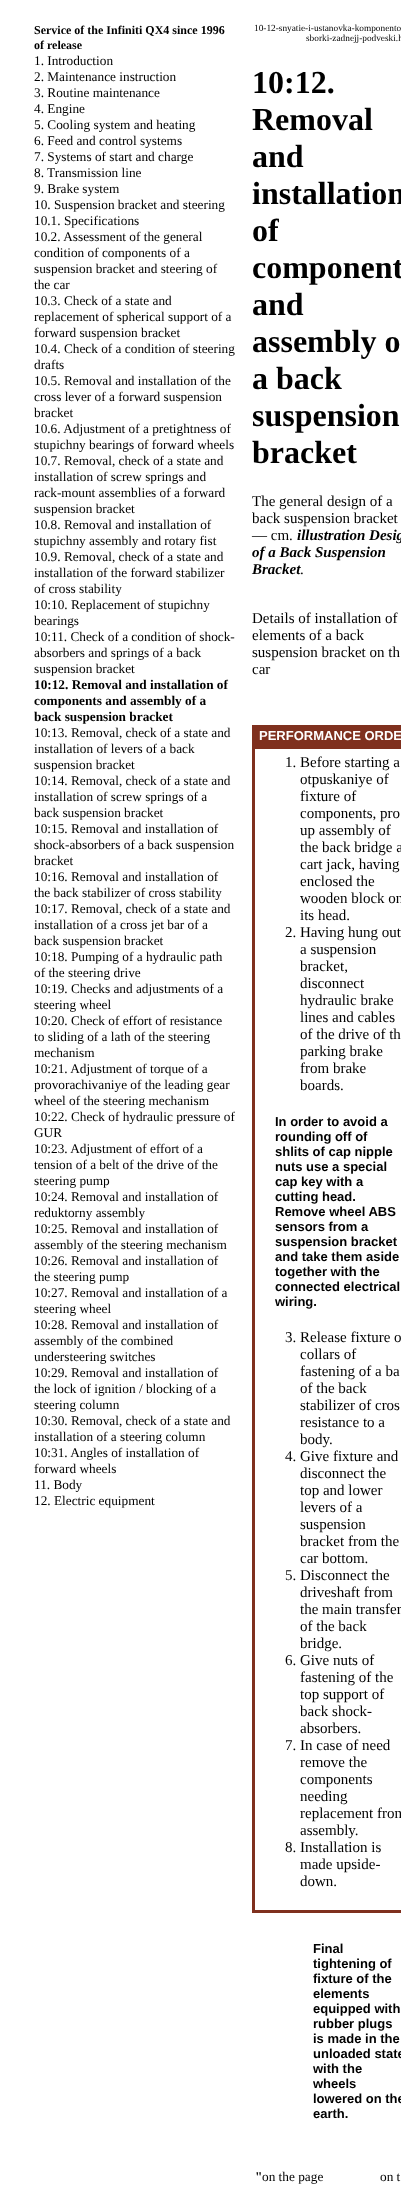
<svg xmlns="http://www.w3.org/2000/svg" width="401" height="2192">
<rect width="100%" height="100%" fill="#fff"/>
<text x="34" y="34" style="font-family:Liberation Serif;font-size:12px;font-weight:bold;fill:#000">Service of the Infiniti QX4 since 1996</text>
<text x="34" y="49" style="font-family:Liberation Serif;font-size:12px;font-weight:bold;fill:#000">of release</text>
<text x="34" y="65" style="font-family:Liberation Serif;font-size:13.3px;fill:#000">1. Introduction</text>
<text x="34" y="81" style="font-family:Liberation Serif;font-size:13.3px;fill:#000">2. Maintenance instruction</text>
<text x="34" y="97" style="font-family:Liberation Serif;font-size:13.3px;fill:#000">3. Routine maintenance</text>
<text x="34" y="113" style="font-family:Liberation Serif;font-size:13.3px;fill:#000">4. Engine</text>
<text x="34" y="129" style="font-family:Liberation Serif;font-size:13.3px;fill:#000">5. Cooling system and heating</text>
<text x="34" y="145" style="font-family:Liberation Serif;font-size:13.3px;fill:#000">6. Feed and control systems</text>
<text x="34" y="161" style="font-family:Liberation Serif;font-size:13.3px;fill:#000">7. Systems of start and charge</text>
<text x="34" y="177" style="font-family:Liberation Serif;font-size:13.3px;fill:#000">8. Transmission line</text>
<text x="34" y="193" style="font-family:Liberation Serif;font-size:13.3px;fill:#000">9. Brake system</text>
<text x="34" y="209" style="font-family:Liberation Serif;font-size:13.3px;fill:#000">10. Suspension bracket and steering</text>
<text x="34" y="225" style="font-family:Liberation Serif;font-size:13.3px;fill:#000">10.1. Specifications</text>
<text x="34" y="241" style="font-family:Liberation Serif;font-size:13.3px;fill:#000">10.2. Assessment of the general</text>
<text x="34" y="257" style="font-family:Liberation Serif;font-size:13.3px;fill:#000">condition of components of a</text>
<text x="34" y="273" style="font-family:Liberation Serif;font-size:13.3px;fill:#000">suspension bracket and steering of</text>
<text x="34" y="289" style="font-family:Liberation Serif;font-size:13.3px;fill:#000">the car</text>
<text x="34" y="305" style="font-family:Liberation Serif;font-size:13.3px;fill:#000">10.3. Check of a state and</text>
<text x="34" y="321" style="font-family:Liberation Serif;font-size:13.3px;fill:#000">replacement of spherical support of a</text>
<text x="34" y="337" style="font-family:Liberation Serif;font-size:13.3px;fill:#000">forward suspension bracket</text>
<text x="34" y="353" style="font-family:Liberation Serif;font-size:13.3px;fill:#000">10.4. Check of a condition of steering</text>
<text x="34" y="369" style="font-family:Liberation Serif;font-size:13.3px;fill:#000">drafts</text>
<text x="34" y="385" style="font-family:Liberation Serif;font-size:13.3px;fill:#000">10.5. Removal and installation of the</text>
<text x="34" y="401" style="font-family:Liberation Serif;font-size:13.3px;fill:#000">cross lever of a forward suspension</text>
<text x="34" y="417" style="font-family:Liberation Serif;font-size:13.3px;fill:#000">bracket</text>
<text x="34" y="433" style="font-family:Liberation Serif;font-size:13.3px;fill:#000">10.6. Adjustment of a pretightness of</text>
<text x="34" y="449" style="font-family:Liberation Serif;font-size:13.3px;fill:#000">stupichny bearings of forward wheels</text>
<text x="34" y="465" style="font-family:Liberation Serif;font-size:13.3px;fill:#000">10.7. Removal, check of a state and</text>
<text x="34" y="481" style="font-family:Liberation Serif;font-size:13.3px;fill:#000">installation of screw springs and</text>
<text x="34" y="497" style="font-family:Liberation Serif;font-size:13.3px;fill:#000">rack-mount assemblies of a forward</text>
<text x="34" y="513" style="font-family:Liberation Serif;font-size:13.3px;fill:#000">suspension bracket</text>
<text x="34" y="529" style="font-family:Liberation Serif;font-size:13.3px;fill:#000">10.8. Removal and installation of</text>
<text x="34" y="545" style="font-family:Liberation Serif;font-size:13.3px;fill:#000">stupichny assembly and rotary fist</text>
<text x="34" y="561" style="font-family:Liberation Serif;font-size:13.3px;fill:#000">10.9. Removal, check of a state and</text>
<text x="34" y="577" style="font-family:Liberation Serif;font-size:13.3px;fill:#000">installation of the forward stabilizer</text>
<text x="34" y="593" style="font-family:Liberation Serif;font-size:13.3px;fill:#000">of cross stability</text>
<text x="34" y="609" style="font-family:Liberation Serif;font-size:13.3px;fill:#000">10:10. Replacement of stupichny</text>
<text x="34" y="625" style="font-family:Liberation Serif;font-size:13.3px;fill:#000">bearings</text>
<text x="34" y="641" style="font-family:Liberation Serif;font-size:13.3px;fill:#000">10:11. Check of a condition of shock-</text>
<text x="34" y="657" style="font-family:Liberation Serif;font-size:13.3px;fill:#000">absorbers and springs of a back</text>
<text x="34" y="673" style="font-family:Liberation Serif;font-size:13.3px;fill:#000">suspension bracket</text>
<text x="34" y="689" style="font-family:Liberation Serif;font-size:13.3px;font-weight:bold;fill:#000">10:12. Removal and installation of</text>
<text x="34" y="705" style="font-family:Liberation Serif;font-size:13.3px;font-weight:bold;fill:#000">components and assembly of a</text>
<text x="34" y="721" style="font-family:Liberation Serif;font-size:13.3px;font-weight:bold;fill:#000">back suspension bracket</text>
<text x="34" y="737" style="font-family:Liberation Serif;font-size:13.3px;fill:#000">10:13. Removal, check of a state and</text>
<text x="34" y="753" style="font-family:Liberation Serif;font-size:13.3px;fill:#000">installation of levers of a back</text>
<text x="34" y="769" style="font-family:Liberation Serif;font-size:13.3px;fill:#000">suspension bracket</text>
<text x="34" y="785" style="font-family:Liberation Serif;font-size:13.3px;fill:#000">10:14. Removal, check of a state and</text>
<text x="34" y="801" style="font-family:Liberation Serif;font-size:13.3px;fill:#000">installation of screw springs of a</text>
<text x="34" y="817" style="font-family:Liberation Serif;font-size:13.3px;fill:#000">back suspension bracket</text>
<text x="34" y="833" style="font-family:Liberation Serif;font-size:13.3px;fill:#000">10:15. Removal and installation of</text>
<text x="34" y="849" style="font-family:Liberation Serif;font-size:13.3px;fill:#000">shock-absorbers of a back suspension</text>
<text x="34" y="865" style="font-family:Liberation Serif;font-size:13.3px;fill:#000">bracket</text>
<text x="34" y="881" style="font-family:Liberation Serif;font-size:13.3px;fill:#000">10:16. Removal and installation of</text>
<text x="34" y="897" style="font-family:Liberation Serif;font-size:13.3px;fill:#000">the back stabilizer of cross stability</text>
<text x="34" y="913" style="font-family:Liberation Serif;font-size:13.3px;fill:#000">10:17. Removal, check of a state and</text>
<text x="34" y="929" style="font-family:Liberation Serif;font-size:13.3px;fill:#000">installation of a cross jet bar of a</text>
<text x="34" y="945" style="font-family:Liberation Serif;font-size:13.3px;fill:#000">back suspension bracket</text>
<text x="34" y="961" style="font-family:Liberation Serif;font-size:13.3px;fill:#000">10:18. Pumping of a hydraulic path</text>
<text x="34" y="977" style="font-family:Liberation Serif;font-size:13.3px;fill:#000">of the steering drive</text>
<text x="34" y="993" style="font-family:Liberation Serif;font-size:13.3px;fill:#000">10:19. Checks and adjustments of a</text>
<text x="34" y="1009" style="font-family:Liberation Serif;font-size:13.3px;fill:#000">steering wheel</text>
<text x="34" y="1025" style="font-family:Liberation Serif;font-size:13.3px;fill:#000">10:20. Check of effort of resistance</text>
<text x="34" y="1041" style="font-family:Liberation Serif;font-size:13.3px;fill:#000">to sliding of a lath of the steering</text>
<text x="34" y="1057" style="font-family:Liberation Serif;font-size:13.3px;fill:#000">mechanism</text>
<text x="34" y="1073" style="font-family:Liberation Serif;font-size:13.3px;fill:#000">10:21. Adjustment of torque of a</text>
<text x="34" y="1089" style="font-family:Liberation Serif;font-size:13.3px;fill:#000">provorachivaniye of the leading gear</text>
<text x="34" y="1105" style="font-family:Liberation Serif;font-size:13.3px;fill:#000">wheel of the steering mechanism</text>
<text x="34" y="1121" style="font-family:Liberation Serif;font-size:13.3px;fill:#000">10:22. Check of hydraulic pressure of</text>
<text x="34" y="1137" style="font-family:Liberation Serif;font-size:13.3px;fill:#000">GUR</text>
<text x="34" y="1153" style="font-family:Liberation Serif;font-size:13.3px;fill:#000">10:23. Adjustment of effort of a</text>
<text x="34" y="1169" style="font-family:Liberation Serif;font-size:13.3px;fill:#000">tension of a belt of the drive of the</text>
<text x="34" y="1185" style="font-family:Liberation Serif;font-size:13.3px;fill:#000">steering pump</text>
<text x="34" y="1201" style="font-family:Liberation Serif;font-size:13.3px;fill:#000">10:24. Removal and installation of</text>
<text x="34" y="1217" style="font-family:Liberation Serif;font-size:13.3px;fill:#000">reduktorny assembly</text>
<text x="34" y="1233" style="font-family:Liberation Serif;font-size:13.3px;fill:#000">10:25. Removal and installation of</text>
<text x="34" y="1249" style="font-family:Liberation Serif;font-size:13.3px;fill:#000">assembly of the steering mechanism</text>
<text x="34" y="1265" style="font-family:Liberation Serif;font-size:13.3px;fill:#000">10:26. Removal and installation of</text>
<text x="34" y="1281" style="font-family:Liberation Serif;font-size:13.3px;fill:#000">the steering pump</text>
<text x="34" y="1297" style="font-family:Liberation Serif;font-size:13.3px;fill:#000">10:27. Removal and installation of a</text>
<text x="34" y="1313" style="font-family:Liberation Serif;font-size:13.3px;fill:#000">steering wheel</text>
<text x="34" y="1329" style="font-family:Liberation Serif;font-size:13.3px;fill:#000">10:28. Removal and installation of</text>
<text x="34" y="1345" style="font-family:Liberation Serif;font-size:13.3px;fill:#000">assembly of the combined</text>
<text x="34" y="1361" style="font-family:Liberation Serif;font-size:13.3px;fill:#000">understeering switches</text>
<text x="34" y="1377" style="font-family:Liberation Serif;font-size:13.3px;fill:#000">10:29. Removal and installation of</text>
<text x="34" y="1393" style="font-family:Liberation Serif;font-size:13.3px;fill:#000">the lock of ignition / blocking of a</text>
<text x="34" y="1409" style="font-family:Liberation Serif;font-size:13.3px;fill:#000">steering column</text>
<text x="34" y="1425" style="font-family:Liberation Serif;font-size:13.3px;fill:#000">10:30. Removal, check of a state and</text>
<text x="34" y="1441" style="font-family:Liberation Serif;font-size:13.3px;fill:#000">installation of a steering column</text>
<text x="34" y="1457" style="font-family:Liberation Serif;font-size:13.3px;fill:#000">10:31. Angles of installation of</text>
<text x="34" y="1473" style="font-family:Liberation Serif;font-size:13.3px;fill:#000">forward wheels</text>
<text x="34" y="1489" style="font-family:Liberation Serif;font-size:13.3px;fill:#000">11. Body</text>
<text x="34" y="1505" style="font-family:Liberation Serif;font-size:13.3px;fill:#000">12. Electric equipment</text>
<text x="254" y="31" style="font-family:Liberation Serif;font-size:9.3px;fill:#000">10-12-snyatie-i-ustanovka-komponento</text>
<text x="306" y="41" style="font-family:Liberation Serif;font-size:9.3px;fill:#000">sborki-zadnejj-podveski.h</text>
<text x="252" y="93" style="font-family:Liberation Serif;font-size:32px;font-weight:bold;fill:#000">10:12.</text>
<text x="252" y="130" style="font-family:Liberation Serif;font-size:32px;font-weight:bold;fill:#000">Removal</text>
<text x="252" y="167" style="font-family:Liberation Serif;font-size:32px;font-weight:bold;fill:#000">and</text>
<text x="252" y="204" style="font-family:Liberation Serif;font-size:32px;font-weight:bold;fill:#000">installation</text>
<text x="252" y="241" style="font-family:Liberation Serif;font-size:32px;font-weight:bold;fill:#000">of</text>
<text x="252" y="278" style="font-family:Liberation Serif;font-size:32px;font-weight:bold;fill:#000">component</text>
<text x="252" y="315" style="font-family:Liberation Serif;font-size:32px;font-weight:bold;fill:#000">and</text>
<text x="252" y="352" style="font-family:Liberation Serif;font-size:32px;font-weight:bold;fill:#000">assembly o</text>
<text x="252" y="389" style="font-family:Liberation Serif;font-size:32px;font-weight:bold;fill:#000">a back</text>
<text x="252" y="426" style="font-family:Liberation Serif;font-size:32px;font-weight:bold;fill:#000">suspension</text>
<text x="252" y="463" style="font-family:Liberation Serif;font-size:32px;font-weight:bold;fill:#000">bracket</text>
<text x="252" y="506" style="font-family:Liberation Serif;font-size:15px;fill:#000">The general design of a</text>
<text x="252" y="523" style="font-family:Liberation Serif;font-size:15px;fill:#000">back suspension bracket</text>
<text x="252" y="540" style="font-family:Liberation Serif;font-size:15px;fill:#000">— cm.</text>
<text x="297" y="540" style="font-family:Liberation Serif;font-size:15px;font-weight:bold;font-style:italic;fill:#000">illustration Desig</text>
<text x="252" y="557" style="font-family:Liberation Serif;font-size:15px;font-weight:bold;font-style:italic;fill:#000">of a Back Suspension</text>
<text x="252" y="574" style="font-family:Liberation Serif;font-size:15px;font-weight:bold;font-style:italic;fill:#000">Bracket</text>
<text x="300" y="574" style="font-family:Liberation Serif;font-size:15px;fill:#000">.</text>
<text x="252" y="623" style="font-family:Liberation Serif;font-size:15px;fill:#000">Details of installation of</text>
<text x="252" y="640" style="font-family:Liberation Serif;font-size:15px;fill:#000">elements of a back</text>
<text x="252" y="657" style="font-family:Liberation Serif;font-size:15px;fill:#000">suspension bracket on th</text>
<text x="252" y="674" style="font-family:Liberation Serif;font-size:15px;fill:#000">car</text>
<rect x="252" y="725" width="149" height="1188" fill="#7f301e"/>
<text x="259" y="740" style="font-family:Liberation Sans;font-size:13px;font-weight:bold;fill:#fff">PERFORMANCE ORDE</text>
<rect x="255" y="749" width="146" height="1161" fill="#fff"/>
<text x="285" y="767" style="font-family:Liberation Serif;font-size:15px;fill:#000">1. Before starting a</text>
<text x="300" y="784" style="font-family:Liberation Serif;font-size:15px;fill:#000">otpuskaniye of</text>
<text x="300" y="801" style="font-family:Liberation Serif;font-size:15px;fill:#000">fixture of</text>
<text x="300" y="818" style="font-family:Liberation Serif;font-size:15px;fill:#000">components, pro</text>
<text x="300" y="835" style="font-family:Liberation Serif;font-size:15px;fill:#000">up assembly of</text>
<text x="300" y="852" style="font-family:Liberation Serif;font-size:15px;fill:#000">the back bridge a</text>
<text x="300" y="869" style="font-family:Liberation Serif;font-size:15px;fill:#000">cart jack, having</text>
<text x="300" y="886" style="font-family:Liberation Serif;font-size:15px;fill:#000">enclosed the</text>
<text x="300" y="903" style="font-family:Liberation Serif;font-size:15px;fill:#000">wooden block on</text>
<text x="300" y="920" style="font-family:Liberation Serif;font-size:15px;fill:#000">its head.</text>
<text x="285" y="937" style="font-family:Liberation Serif;font-size:15px;fill:#000">2. Having hung out</text>
<text x="300" y="954" style="font-family:Liberation Serif;font-size:15px;fill:#000">a suspension</text>
<text x="300" y="971" style="font-family:Liberation Serif;font-size:15px;fill:#000">bracket,</text>
<text x="300" y="988" style="font-family:Liberation Serif;font-size:15px;fill:#000">disconnect</text>
<text x="300" y="1005" style="font-family:Liberation Serif;font-size:15px;fill:#000">hydraulic brake</text>
<text x="300" y="1022" style="font-family:Liberation Serif;font-size:15px;fill:#000">lines and cables</text>
<text x="300" y="1039" style="font-family:Liberation Serif;font-size:15px;fill:#000">of the drive of th</text>
<text x="300" y="1056" style="font-family:Liberation Serif;font-size:15px;fill:#000">parking brake</text>
<text x="300" y="1073" style="font-family:Liberation Serif;font-size:15px;fill:#000">from brake</text>
<text x="300" y="1090" style="font-family:Liberation Serif;font-size:15px;fill:#000">boards.</text>
<text x="275" y="1126" style="font-family:Liberation Sans;font-size:13px;font-weight:bold;fill:#000">In order to avoid a</text>
<text x="275" y="1141" style="font-family:Liberation Sans;font-size:13px;font-weight:bold;fill:#000">rounding off of</text>
<text x="275" y="1156" style="font-family:Liberation Sans;font-size:13px;font-weight:bold;fill:#000">shlits of cap nipple</text>
<text x="275" y="1171" style="font-family:Liberation Sans;font-size:13px;font-weight:bold;fill:#000">nuts use a special</text>
<text x="275" y="1186" style="font-family:Liberation Sans;font-size:13px;font-weight:bold;fill:#000">cap key with a</text>
<text x="275" y="1201" style="font-family:Liberation Sans;font-size:13px;font-weight:bold;fill:#000">cutting head.</text>
<text x="275" y="1216" style="font-family:Liberation Sans;font-size:13px;font-weight:bold;fill:#000">Remove wheel ABS</text>
<text x="275" y="1231" style="font-family:Liberation Sans;font-size:13px;font-weight:bold;fill:#000">sensors from a</text>
<text x="275" y="1246" style="font-family:Liberation Sans;font-size:13px;font-weight:bold;fill:#000">suspension bracket</text>
<text x="275" y="1261" style="font-family:Liberation Sans;font-size:13px;font-weight:bold;fill:#000">and take them aside</text>
<text x="275" y="1276" style="font-family:Liberation Sans;font-size:13px;font-weight:bold;fill:#000">together with the</text>
<text x="275" y="1291" style="font-family:Liberation Sans;font-size:13px;font-weight:bold;fill:#000">connected electrical</text>
<text x="275" y="1306" style="font-family:Liberation Sans;font-size:13px;font-weight:bold;fill:#000">wiring.</text>
<text x="285" y="1342" style="font-family:Liberation Serif;font-size:15px;fill:#000">3. Release fixture o</text>
<text x="300" y="1359" style="font-family:Liberation Serif;font-size:15px;fill:#000">collars of</text>
<text x="300" y="1376" style="font-family:Liberation Serif;font-size:15px;fill:#000">fastening of a ba</text>
<text x="300" y="1393" style="font-family:Liberation Serif;font-size:15px;fill:#000">of the back</text>
<text x="300" y="1410" style="font-family:Liberation Serif;font-size:15px;fill:#000">stabilizer of cros</text>
<text x="300" y="1427" style="font-family:Liberation Serif;font-size:15px;fill:#000">resistance to a</text>
<text x="300" y="1444" style="font-family:Liberation Serif;font-size:15px;fill:#000">body.</text>
<text x="285" y="1461" style="font-family:Liberation Serif;font-size:15px;fill:#000">4. Give fixture and</text>
<text x="300" y="1478" style="font-family:Liberation Serif;font-size:15px;fill:#000">disconnect the</text>
<text x="300" y="1495" style="font-family:Liberation Serif;font-size:15px;fill:#000">top and lower</text>
<text x="300" y="1512" style="font-family:Liberation Serif;font-size:15px;fill:#000">levers of a</text>
<text x="300" y="1529" style="font-family:Liberation Serif;font-size:15px;fill:#000">suspension</text>
<text x="300" y="1546" style="font-family:Liberation Serif;font-size:15px;fill:#000">bracket from the</text>
<text x="300" y="1563" style="font-family:Liberation Serif;font-size:15px;fill:#000">car bottom.</text>
<text x="285" y="1580" style="font-family:Liberation Serif;font-size:15px;fill:#000">5. Disconnect the</text>
<text x="300" y="1597" style="font-family:Liberation Serif;font-size:15px;fill:#000">driveshaft from</text>
<text x="300" y="1614" style="font-family:Liberation Serif;font-size:15px;fill:#000">the main transfer</text>
<text x="300" y="1631" style="font-family:Liberation Serif;font-size:15px;fill:#000">of the back</text>
<text x="300" y="1648" style="font-family:Liberation Serif;font-size:15px;fill:#000">bridge.</text>
<text x="285" y="1665" style="font-family:Liberation Serif;font-size:15px;fill:#000">6. Give nuts of</text>
<text x="300" y="1682" style="font-family:Liberation Serif;font-size:15px;fill:#000">fastening of the</text>
<text x="300" y="1699" style="font-family:Liberation Serif;font-size:15px;fill:#000">top support of</text>
<text x="300" y="1716" style="font-family:Liberation Serif;font-size:15px;fill:#000">back shock-</text>
<text x="300" y="1733" style="font-family:Liberation Serif;font-size:15px;fill:#000">absorbers.</text>
<text x="285" y="1750" style="font-family:Liberation Serif;font-size:15px;fill:#000">7. In case of need</text>
<text x="300" y="1767" style="font-family:Liberation Serif;font-size:15px;fill:#000">remove the</text>
<text x="300" y="1784" style="font-family:Liberation Serif;font-size:15px;fill:#000">components</text>
<text x="300" y="1801" style="font-family:Liberation Serif;font-size:15px;fill:#000">needing</text>
<text x="300" y="1818" style="font-family:Liberation Serif;font-size:15px;fill:#000">replacement from</text>
<text x="300" y="1835" style="font-family:Liberation Serif;font-size:15px;fill:#000">assembly.</text>
<text x="285" y="1852" style="font-family:Liberation Serif;font-size:15px;fill:#000">8. Installation is</text>
<text x="300" y="1869" style="font-family:Liberation Serif;font-size:15px;fill:#000">made upside-</text>
<text x="300" y="1886" style="font-family:Liberation Serif;font-size:15px;fill:#000">down.</text>
<text x="313" y="1953" style="font-family:Liberation Sans;font-size:13px;font-weight:bold;fill:#000">Final</text>
<text x="313" y="1968" style="font-family:Liberation Sans;font-size:13px;font-weight:bold;fill:#000">tightening of</text>
<text x="313" y="1983" style="font-family:Liberation Sans;font-size:13px;font-weight:bold;fill:#000">fixture of the</text>
<text x="313" y="1998" style="font-family:Liberation Sans;font-size:13px;font-weight:bold;fill:#000">elements</text>
<text x="313" y="2013" style="font-family:Liberation Sans;font-size:13px;font-weight:bold;fill:#000">equipped with</text>
<text x="313" y="2028" style="font-family:Liberation Sans;font-size:13px;font-weight:bold;fill:#000">rubber plugs</text>
<text x="313" y="2043" style="font-family:Liberation Sans;font-size:13px;font-weight:bold;fill:#000">is made in the</text>
<text x="313" y="2058" style="font-family:Liberation Sans;font-size:13px;font-weight:bold;fill:#000">unloaded state</text>
<text x="313" y="2073" style="font-family:Liberation Sans;font-size:13px;font-weight:bold;fill:#000">with the</text>
<text x="313" y="2088" style="font-family:Liberation Sans;font-size:13px;font-weight:bold;fill:#000">wheels</text>
<text x="313" y="2103" style="font-family:Liberation Sans;font-size:13px;font-weight:bold;fill:#000">lowered on the</text>
<text x="313" y="2118" style="font-family:Liberation Sans;font-size:13px;font-weight:bold;fill:#000">earth.</text>
<text x="255" y="2181" style="font-family:Liberation Serif;font-size:13.3px;font-weight:bold;fill:#000">"</text>
<text x="262" y="2181" style="font-family:Liberation Serif;font-size:13.3px;fill:#000">on the page</text>
<text x="380" y="2181" style="font-family:Liberation Serif;font-size:13.3px;fill:#000">on t</text>
</svg>
